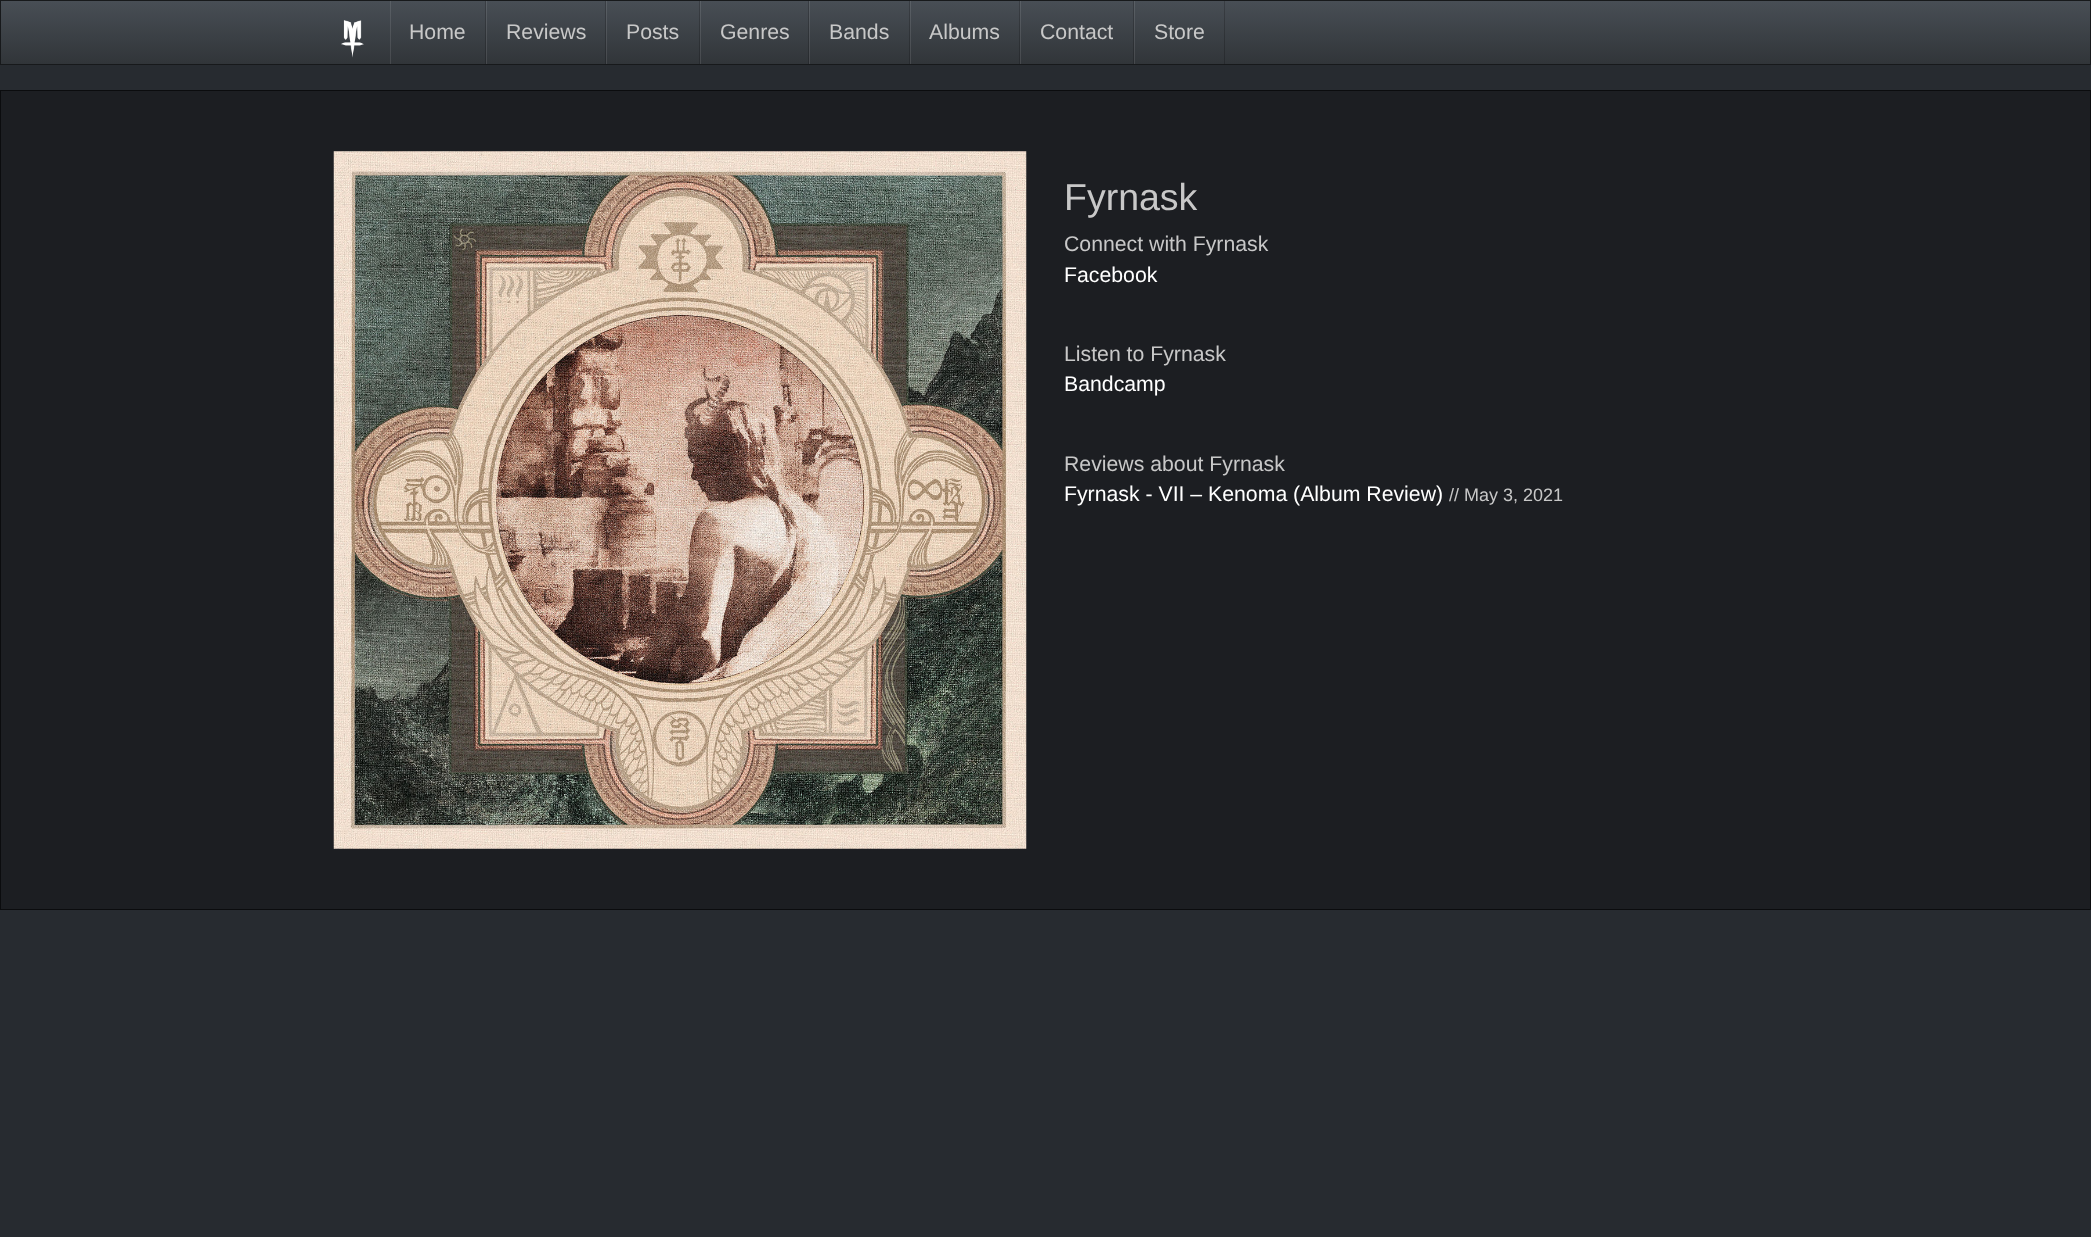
<svg xmlns="http://www.w3.org/2000/svg" width="2091" height="1237">
<defs>
<linearGradient id="g1" gradientUnits="userSpaceOnUse" x1="1046" y1="1.2" x2="1046" y2="64"><stop offset="0" stop-color="#484e55"/><stop offset="0.6" stop-color="#3a3f44"/><stop offset="1" stop-color="#313539"/></linearGradient>
<linearGradient id="g2" gradientUnits="userSpaceOnUse" x1="1046" y1="1.2" x2="1046" y2="64"><stop offset="0" stop-color="#5a6066"/><stop offset="0.6" stop-color="#4e5257"/><stop offset="1" stop-color="#46494d"/></linearGradient>
<linearGradient id="g3" gradientUnits="userSpaceOnUse" x1="1046" y1="1.2" x2="1046" y2="64"><stop offset="0" stop-color="#3a3e44"/><stop offset="0.6" stop-color="#2e3236"/><stop offset="1" stop-color="#272a2e"/></linearGradient>
</defs>
<rect width="100%" height="100%" fill="#272b30"/>
<rect x="1" y="1" width="2089" height="63" fill="url(#g1)"/>
<rect x="1134" y="1" width="1" height="63" fill="url(#g2)"/>
<rect x="1224" y="1" width="1" height="63" fill="url(#g3)"/>
<rect x="1020" y="1" width="1" height="63" fill="url(#g2)"/>
<rect x="1133" y="1" width="1" height="63" fill="url(#g3)"/>
<rect x="910" y="1" width="1" height="63" fill="url(#g2)"/>
<rect x="1019" y="1" width="1" height="63" fill="url(#g3)"/>
<rect x="809" y="1" width="1" height="63" fill="url(#g2)"/>
<rect x="909" y="1" width="1" height="63" fill="url(#g3)"/>
<rect x="700" y="1" width="1" height="63" fill="url(#g2)"/>
<rect x="808" y="1" width="1" height="63" fill="url(#g3)"/>
<rect x="606" y="1" width="1" height="63" fill="url(#g2)"/>
<rect x="699" y="1" width="1" height="63" fill="url(#g3)"/>
<rect x="486" y="1" width="1" height="63" fill="url(#g2)"/>
<rect x="605" y="1" width="1" height="63" fill="url(#g3)"/>
<rect x="390" y="1" width="1" height="63" fill="url(#g2)"/>
<rect x="485" y="1" width="1" height="63" fill="url(#g3)"/>
<rect x="0.5" y="0.5" width="2090" height="64" fill="none" stroke="#17191b"/>
<image x="341" y="20" width="23" height="38" href="media/1.png"/>
<text x="409" y="39" style="font-family:Liberation Sans;font-size:21.25px;fill:#c8c8c8">Home</text>
<text x="506" y="39" style="font-family:Liberation Sans;font-size:21.25px;fill:#c8c8c8">Reviews</text>
<text x="626" y="39" style="font-family:Liberation Sans;font-size:21.25px;fill:#c8c8c8">Posts</text>
<text x="720" y="39" style="font-family:Liberation Sans;font-size:21.25px;fill:#c8c8c8">Genres</text>
<text x="829" y="39" style="font-family:Liberation Sans;font-size:21.25px;fill:#c8c8c8">Bands</text>
<text x="929" y="39" style="font-family:Liberation Sans;font-size:21.25px;fill:#c8c8c8">Albums</text>
<text x="1040" y="39" style="font-family:Liberation Sans;font-size:21.25px;fill:#c8c8c8">Contact</text>
<text x="1154" y="39" style="font-family:Liberation Sans;font-size:21.25px;fill:#c8c8c8">Store</text>
<rect x="0.5" y="90.5" width="2090" height="819" fill="#1c1e22" stroke="#0b0c0e"/>
<image x="333" y="151" width="694" height="698" href="media/2.png"/>
<text x="1064" y="210" style="font-family:Liberation Sans;font-size:37.5px;fill:#c8c8c8">Fyrnask</text>
<text x="1064" y="251" style="font-family:Liberation Sans;font-size:21.25px;fill:#c8c8c8">Connect with Fyrnask</text>
<text x="1064" y="282" style="font-family:Liberation Sans;font-size:21.25px;fill:#fff">Facebook</text>
<text x="1064" y="361" style="font-family:Liberation Sans;font-size:21.25px;fill:#c8c8c8">Listen to Fyrnask</text>
<text x="1064" y="391" style="font-family:Liberation Sans;font-size:21.25px;fill:#fff">Bandcamp</text>
<text x="1064" y="471" style="font-family:Liberation Sans;font-size:21.25px;fill:#c8c8c8">Reviews about Fyrnask</text>
<text x="1064" y="501" style="font-family:Liberation Sans;font-size:21.25px;fill:#fff">Fyrnask - VII – Kenoma (Album Review)</text>
<text x="1449" y="501" style="font-family:Liberation Sans;font-size:18px;fill:#c8c8c8">// May 3, 2021</text>
</svg>
